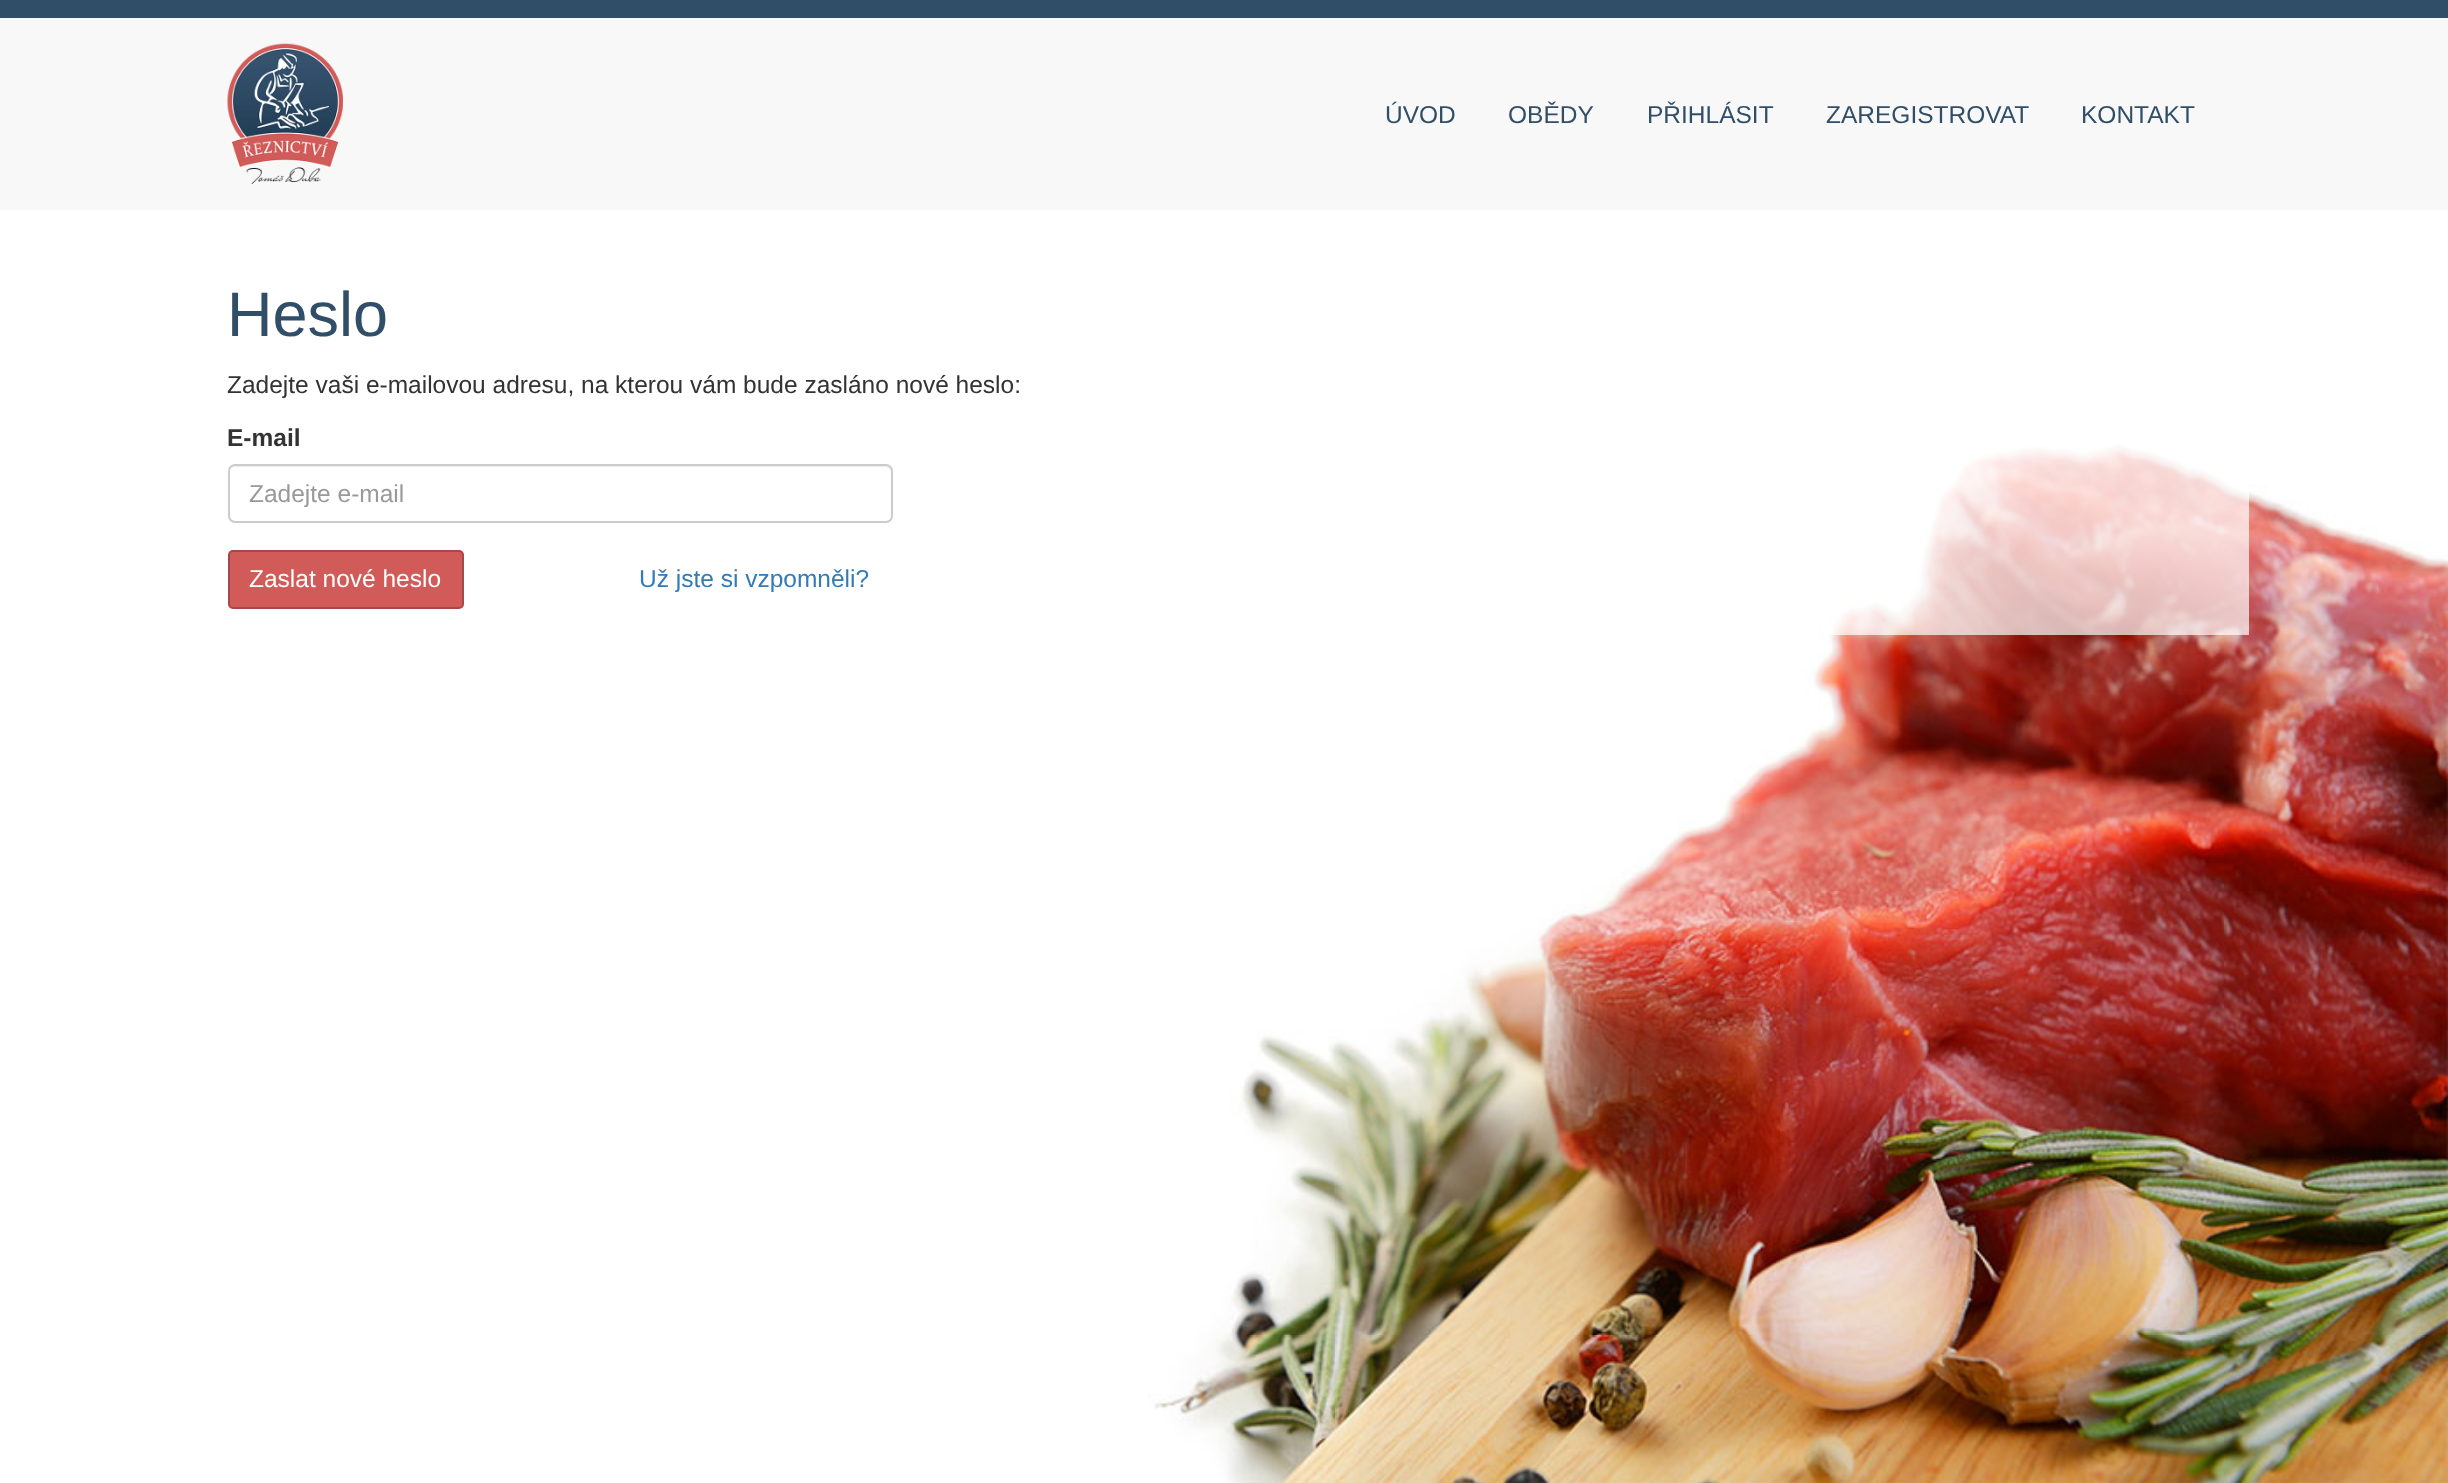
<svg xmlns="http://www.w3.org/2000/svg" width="2448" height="1483">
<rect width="100%" height="100%" fill="#fff"/>
<image x="1148" y="443" width="1300" height="1040" href="media/1.png"/>
<rect width="2448" height="18" fill="#314e69"/>
<rect y="18" width="2448" height="192" fill="#f8f8f8"/>
<image x="227" y="43" width="116" height="141" href="media/2.png"/>
<text x="1385" y="123" style="font-family:Liberation Sans;font-size:24.5px;fill:#314e69">ÚVOD</text>
<text x="1508" y="123" style="font-family:Liberation Sans;font-size:24.5px;fill:#314e69">OBĚDY</text>
<text x="1647" y="123" style="font-family:Liberation Sans;font-size:24.5px;fill:#314e69">PŘIHLÁSIT</text>
<text x="1826" y="123" style="font-family:Liberation Sans;font-size:24.5px;fill:#314e69">ZAREGISTROVAT</text>
<text x="2081" y="123" style="font-family:Liberation Sans;font-size:24.5px;fill:#314e69">KONTAKT</text>
<rect x="1829" y="443" width="420" height="192" fill="#ffffffb3"/>
<text x="227" y="336" style="font-family:Liberation Sans;font-size:63px;fill:#314e69">Heslo</text>
<text x="227" y="393" style="font-family:Liberation Sans;font-size:24.5px;fill:#333">Zadejte vaši e-mailovou adresu, na kterou vám bude zasláno nové heslo:</text>
<text x="227" y="446" style="font-family:Liberation Sans;font-size:24.5px;font-weight:bold;fill:#333">E-mail</text>
<path d="M234 467h652c2 0 5 3 5 5v-1c0-3-2-5-5-5h-652c-3 0-5 2-5 5v1c0-2 3-5 5-5z" fill="#ececec"/>
<rect x="229" y="465" width="663" height="57" rx="6" fill="none" stroke="#ccc" stroke-width="2"/>
<text x="249" y="502" style="font-family:Liberation Sans;font-size:24.5px;fill:#999">Zadejte e-mail</text>
<rect x="228" y="550" width="236" height="59" rx="5" fill="#d15b59"/>
<rect x="229" y="551" width="234" height="57" rx="4" fill="none" stroke="#00000033" stroke-width="2"/>
<text x="249" y="587" style="font-family:Liberation Sans;font-size:24.5px;fill:#fff">Zaslat nové heslo</text>
<text x="639" y="587" style="font-family:Liberation Sans;font-size:24.5px;fill:#337ab7">Už jste si vzpomněli?</text>
</svg>
